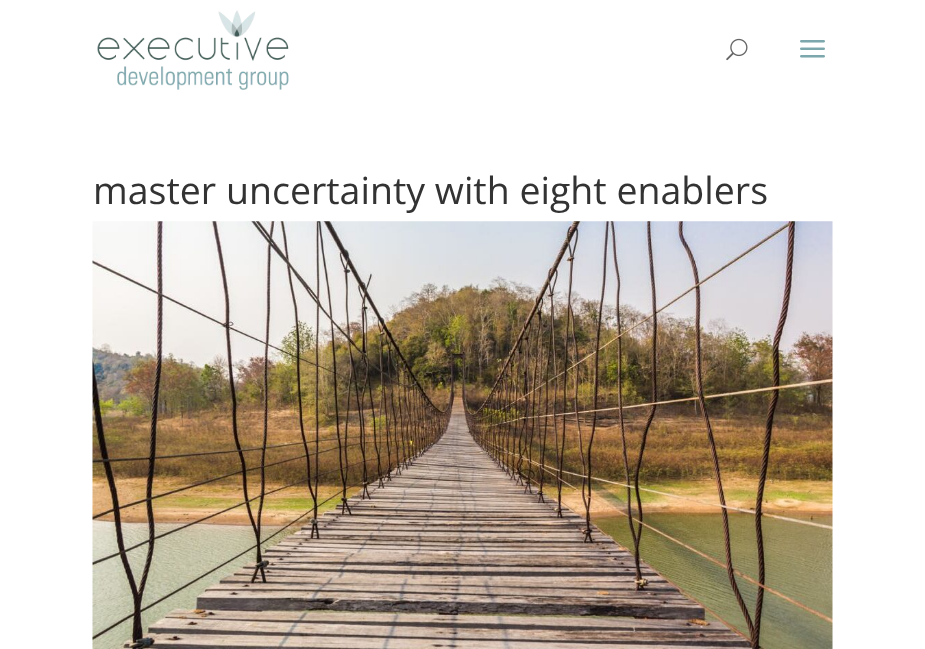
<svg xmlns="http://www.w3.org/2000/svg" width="925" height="649">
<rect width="100%" height="100%" fill="#fff"/>
<image x="97" y="10" width="192" height="80" href="media/1.png"/>
<image x="726" y="38" width="22" height="23" href="media/2.png"/>
<image x="800" y="40" width="25" height="18" href="media/3.png"/>
<text x="93" y="204" style="font-family:Open Sans;font-size:37.5px;fill:#333">master uncertainty with eight enablers</text>
<image x="92" y="221" width="741" height="428" href="media/4.png"/>
</svg>
